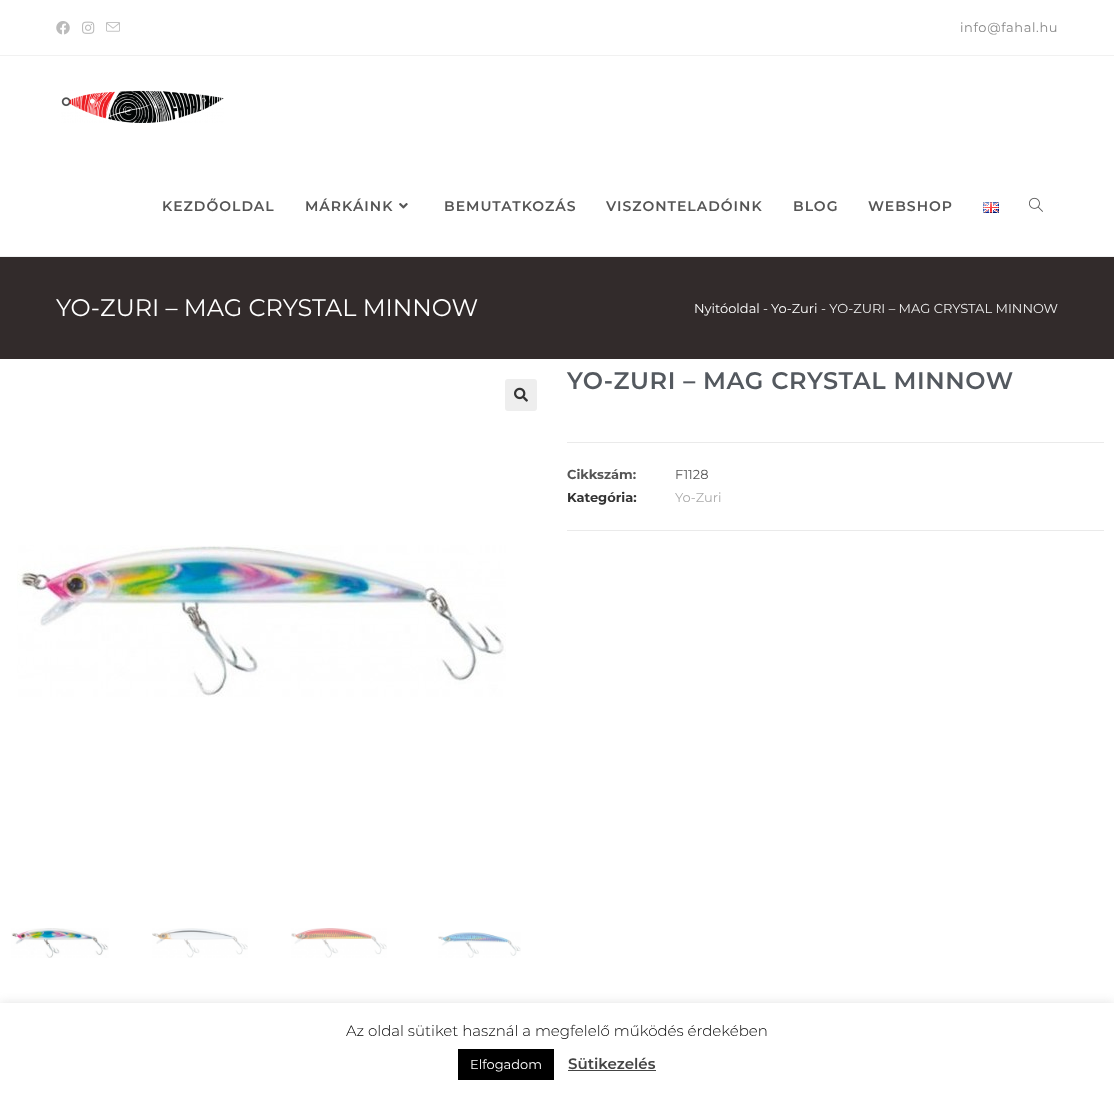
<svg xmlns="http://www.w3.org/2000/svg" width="1114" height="1097">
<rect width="100%" height="100%" fill="#fff"/>
<rect y="55" width="1114" height="1" fill="#f1f1f1"/>
<image x="56" y="21" width="14" height="14" href="media/1.png"/>
<image x="82" y="21" width="13" height="13" href="media/2.png"/>
<image x="106" y="22" width="14" height="10" href="media/3.png"/>
<text x="960" y="32" style="font-family:Montserrat;font-size:13px;letter-spacing:0.6px;fill:#888">info@fahal.hu</text>
<rect y="256" width="1114" height="1" fill="#f1f1f1"/>
<image x="61" y="90" width="163" height="33" href="media/4.png"/>
<text x="162" y="211" style="font-family:Montserrat;font-size:14px;font-weight:600;letter-spacing:1px;fill:#555">KEZDŐOLDAL</text>
<text x="305" y="211" style="font-family:Montserrat;font-size:14px;font-weight:600;letter-spacing:1px;fill:#555">MÁRKÁINK</text>
<image x="399" y="203" width="9" height="6" href="media/5.png"/>
<text x="444" y="211" style="font-family:Montserrat;font-size:14px;font-weight:600;letter-spacing:1px;fill:#555">BEMUTATKOZÁS</text>
<text x="606" y="211" style="font-family:Montserrat;font-size:14px;font-weight:600;letter-spacing:1px;fill:#555">VISZONTELADÓINK</text>
<text x="793" y="211" style="font-family:Montserrat;font-size:14px;font-weight:600;letter-spacing:1px;fill:#555">BLOG</text>
<text x="868" y="211" style="font-family:Montserrat;font-size:14px;font-weight:600;letter-spacing:1px;fill:#555">WEBSHOP</text>
<image x="983" y="202" width="16" height="11" href="media/6.png"/>
<image x="1029" y="197" width="14" height="15" href="media/7.png"/>
<rect y="257" width="1114" height="102" fill="#322b2b"/>
<text x="56" y="316" style="font-family:Montserrat;font-size:24px;fill:#fff">YO-ZURI – MAG CRYSTAL MINNOW</text>
<text x="694" y="313" style="font-family:Montserrat;font-size:13px;fill:#fff">Nyitóoldal</text>
<text x="763" y="313" style="font-family:Montserrat;font-size:13px;fill:#efefef">-</text>
<text x="771" y="313" style="font-family:Montserrat;font-size:13px;fill:#fff">Yo-Zuri</text>
<text x="821" y="313" style="font-family:Montserrat;font-size:13px;fill:#efefef">- YO-ZURI – MAG CRYSTAL MINNOW</text>
<rect x="505" y="379" width="32" height="32" rx="3" fill="#eee"/>
<image x="514" y="387" width="14" height="15" href="media/8.png"/>
<image x="17" y="545" width="489" height="152" href="media/9.png"/>
<image x="11" y="928" width="98" height="30" href="media/10.png"/>
<image x="152" y="928" width="96" height="30" href="media/11.png"/>
<image x="291" y="928" width="96" height="30" href="media/12.png"/>
<image x="438" y="932" width="83" height="26" href="media/13.png"/>
<text x="567" y="389" style="font-family:Montserrat;font-size:24px;font-weight:600;letter-spacing:0.6px;fill:#54595f">YO-ZURI – MAG CRYSTAL MINNOW</text>
<rect x="567" y="442" width="537" height="1" fill="#eaeaea"/>
<rect x="567" y="530" width="537" height="1" fill="#eaeaea"/>
<text x="567" y="479" style="font-family:Montserrat;font-size:13px;font-weight:bold;fill:#555">Cikkszám:</text>
<text x="675" y="479" style="font-family:Montserrat;font-size:13px;fill:#555">F1128</text>
<text x="567" y="502" style="font-family:Montserrat;font-size:13px;font-weight:bold;fill:#333">Kategória:</text>
<text x="675" y="502" style="font-family:Montserrat;font-size:13px;fill:#ababab">Yo-Zuri</text>
<rect y="1002" width="1114" height="94" fill="#acabab4d" filter="blur(5px)"/>
<rect y="1003" width="1114" height="94" fill="#fff"/>
<text x="346" y="1036" style="font-family:Montserrat;font-size:15px;font-weight:300;fill:#000">Az oldal sütiket használ a megfelelő működés érdekében</text>
<rect x="458" y="1049" width="96" height="31" fill="#000"/>
<text x="470" y="1069" style="font-family:Montserrat;font-size:13px;fill:#fff">Elfogadom</text>
<text x="568" y="1069" style="font-family:Montserrat;font-size:15px;font-weight:600;fill:#444">Sütikezelés</text>
<rect x="568" y="1070" width="88" height="1" fill="#444"/>
</svg>
